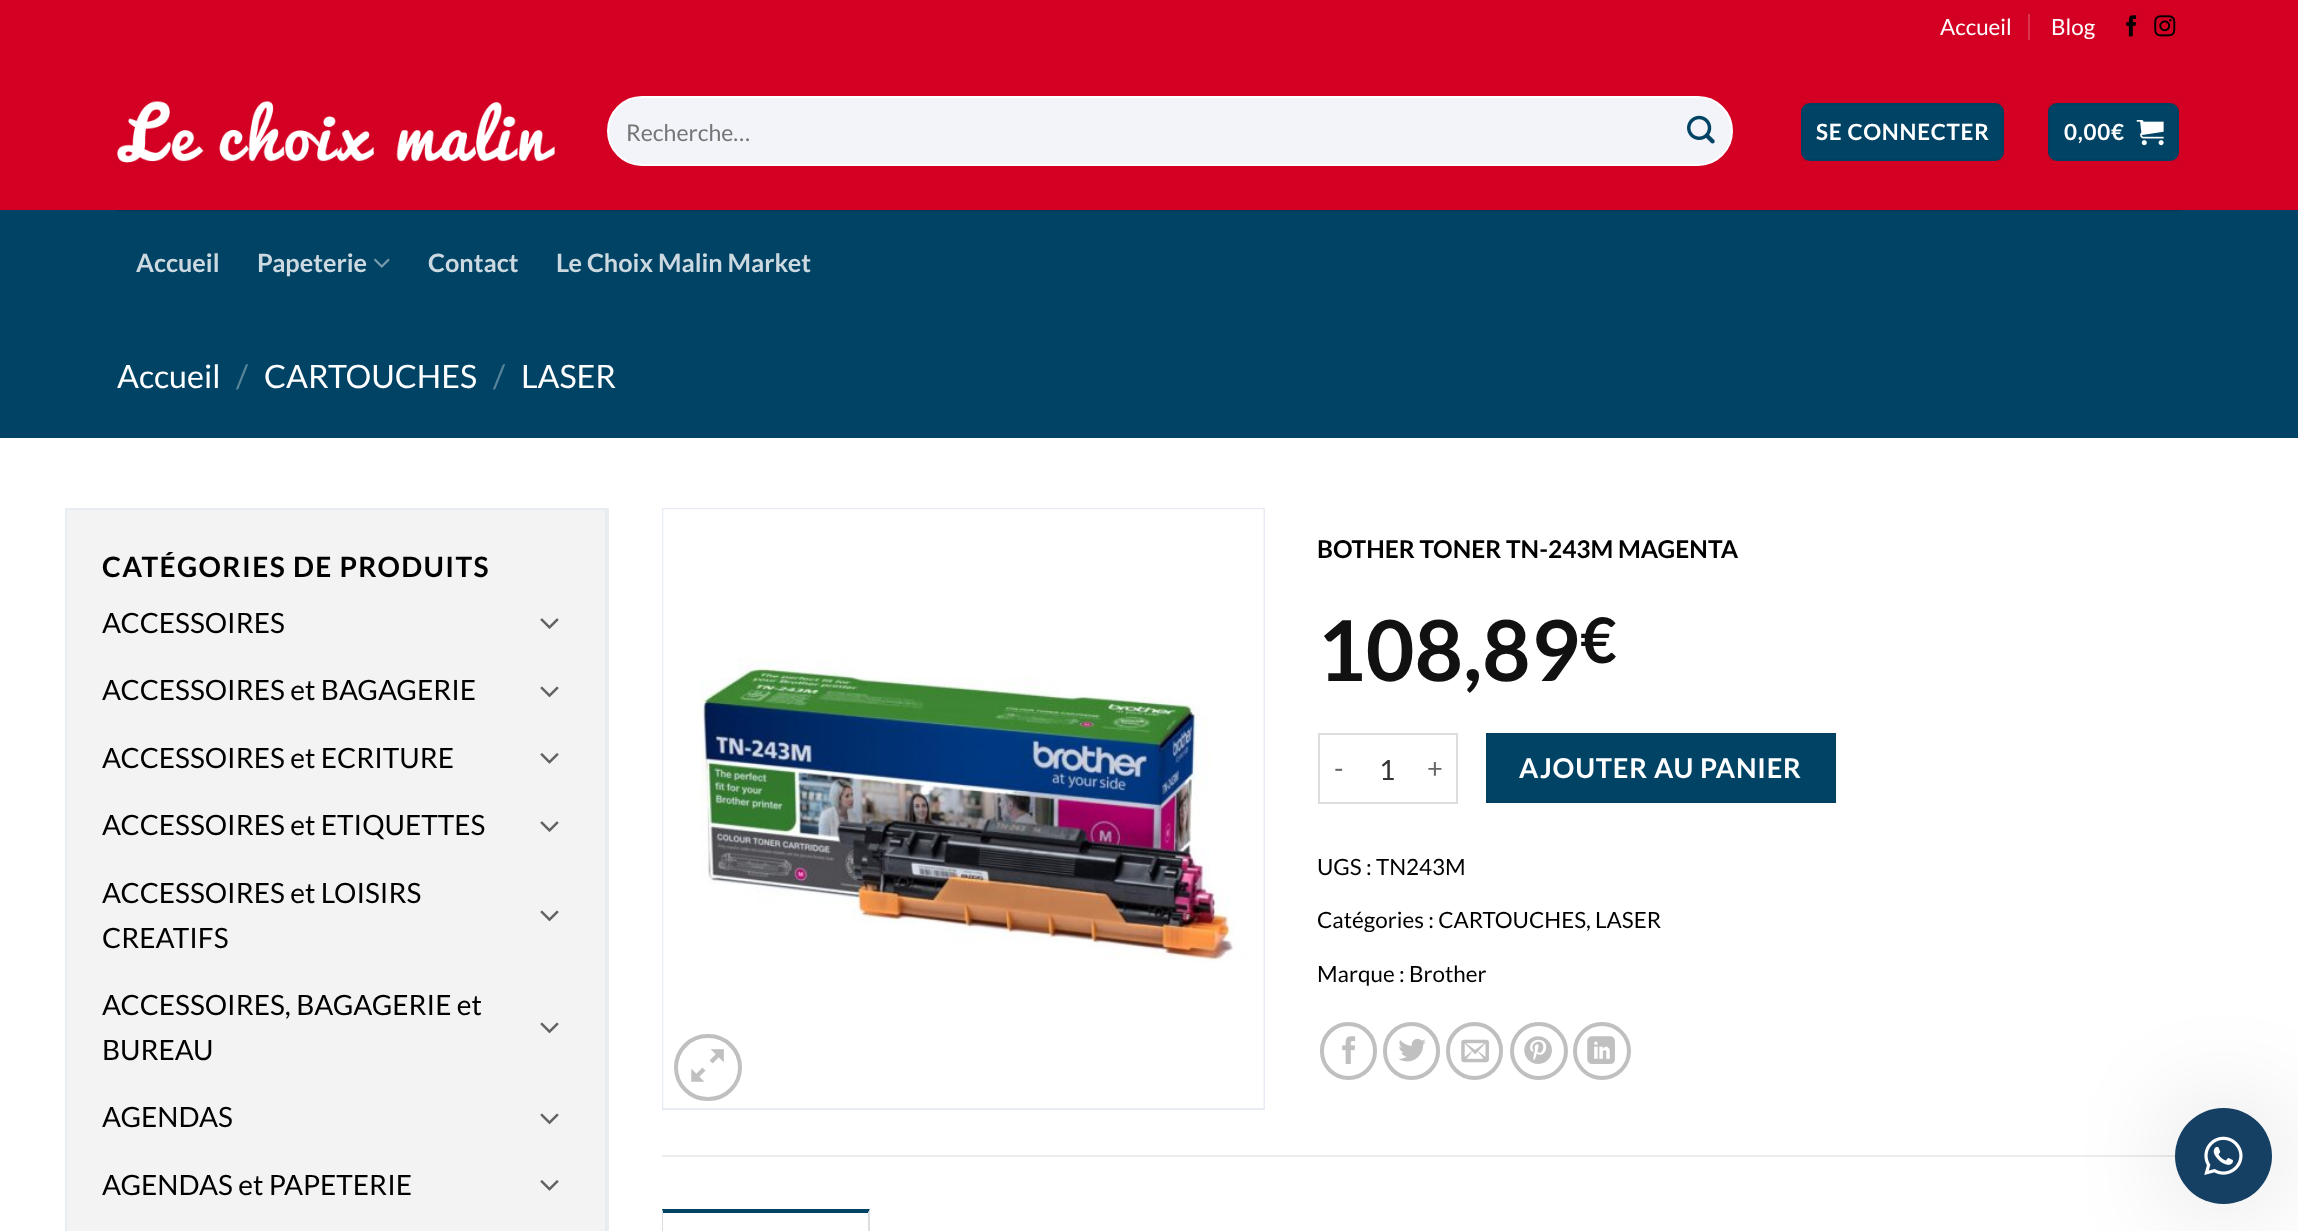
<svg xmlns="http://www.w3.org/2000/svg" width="2298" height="1231">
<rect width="100%" height="100%" fill="#fff"/>
<rect width="2298" height="210" fill="#d30023"/>
<text x="1940" y="35" style="font-family:Lato;font-size:22.4px;fill:#fff">Accueil</text>
<rect x="2028" y="14" width="2" height="26" fill="#dc334f"/>
<text x="2051" y="35" style="font-family:Lato;font-size:22.4px;fill:#fff">Blog</text>
<image x="2126" y="15" width="11" height="22" href="media/1.png"/>
<image x="2154" y="15" width="22" height="22" href="media/2.png"/>
<image x="117" y="101" width="438" height="62" href="media/3.png"/>
<rect x="608" y="97" width="1124" height="68" rx="34" fill="#f3f4fa" stroke="#fff" stroke-width="2"/>
<text x="626" y="141" style="font-family:Lato;font-size:23px;fill:#757575">Recherche…</text>
<image x="1687" y="115" width="28" height="29" href="media/4.png"/>
<rect x="1801" y="103" width="203" height="58" rx="9" fill="#004365"/>
<rect x="1802" y="104" width="201" height="56" fill="none" stroke="#0000000d" stroke-width="2"/>
<text x="1816" y="140" style="font-family:Lato;font-size:22.4px;font-weight:bold;letter-spacing:0.75px;fill:#fff">SE CONNECTER</text>
<rect x="2048" y="103" width="131" height="58" rx="9" fill="#004365"/>
<rect x="2049" y="104" width="129" height="56" fill="none" stroke="#0000000d" stroke-width="2"/>
<text x="2064" y="140" style="font-family:Lato;font-size:22.4px;font-weight:bold;letter-spacing:0.75px;fill:#fff">0,00€</text>
<image x="2136" y="120" width="28" height="26" href="media/5.png"/>
<rect y="210" width="2298" height="228" fill="#004365"/>
<rect x="117" y="210" width="2065" height="2" fill="#003c5b"/>
<text x="136" y="272" style="font-family:Lato;font-size:25.25px;font-weight:bold;fill:#ccd9e0">Accueil</text>
<text x="257" y="272" style="font-family:Lato;font-size:25.25px;font-weight:bold;fill:#ccd9e0">Papeterie</text>
<image x="374" y="258" width="16" height="10" href="media/6.png"/>
<text x="428" y="272" style="font-family:Lato;font-size:25.25px;font-weight:bold;fill:#ccd9e0">Contact</text>
<text x="556" y="272" style="font-family:Lato;font-size:25.25px;font-weight:bold;fill:#ccd9e0">Le Choix Malin Market</text>
<text x="117" y="388" style="font-family:Lato;font-size:32.25px;fill:#fff">Accueil</text>
<text x="236" y="388" style="font-family:Lato;font-size:32.25px;fill:#59859b">/</text>
<text x="264" y="388" style="font-family:Lato;font-size:32.25px;fill:#fff">CARTOUCHES</text>
<text x="493" y="388" style="font-family:Lato;font-size:32.25px;fill:#59859b">/</text>
<text x="521" y="388" style="font-family:Lato;font-size:32.25px;fill:#fff">LASER</text>
<rect x="66" y="509" width="540" height="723" fill="#f3f3f3" stroke="#e7ebf3" stroke-width="2"/>
<text x="102" y="577" style="font-family:Lato;font-size:28px;font-weight:bold;letter-spacing:1.4px;fill:#000">CATÉGORIES DE PRODUITS</text>
<text x="102" y="633" style="font-family:Lato;font-size:28px;fill:#000">ACCESSOIRES</text>
<image x="540" y="618" width="19" height="11" href="media/7.png"/>
<text x="102" y="700" style="font-family:Lato;font-size:28px;fill:#000">ACCESSOIRES et BAGAGERIE</text>
<image x="540" y="686" width="19" height="12" href="media/8.png"/>
<text x="102" y="768" style="font-family:Lato;font-size:28px;fill:#000">ACCESSOIRES et ECRITURE</text>
<image x="540" y="753" width="19" height="11" href="media/9.png"/>
<text x="102" y="835" style="font-family:Lato;font-size:28px;fill:#000">ACCESSOIRES et ETIQUETTES</text>
<image x="540" y="821" width="19" height="11" href="media/7.png"/>
<text x="102" y="903" style="font-family:Lato;font-size:28px;fill:#000">ACCESSOIRES et LOISIRS</text>
<text x="102" y="948" style="font-family:Lato;font-size:28px;fill:#000">CREATIFS</text>
<image x="540" y="910" width="19" height="12" href="media/8.png"/>
<text x="102" y="1015" style="font-family:Lato;font-size:28px;fill:#000">ACCESSOIRES, BAGAGERIE et</text>
<text x="102" y="1060" style="font-family:Lato;font-size:28px;fill:#000">BUREAU</text>
<image x="540" y="1022" width="19" height="12" href="media/8.png"/>
<text x="102" y="1127" style="font-family:Lato;font-size:28px;fill:#000">AGENDAS</text>
<image x="540" y="1113" width="19" height="12" href="media/8.png"/>
<text x="102" y="1195" style="font-family:Lato;font-size:28px;fill:#000">AGENDAS et PAPETERIE</text>
<image x="540" y="1180" width="19" height="11" href="media/9.png"/>
<rect x="607" y="508" width="2" height="723" fill="#ececec"/>
<rect x="663" y="509" width="601" height="600" fill="none" stroke="#e7ebf3" stroke-width="2"/>
<image x="663" y="509" width="601" height="599" href="media/10.png"/>
<rect x="676" y="1036" width="64" height="63" rx="31.5" fill="none" stroke="#c0c0c0" stroke-width="4"/>
<image x="691" y="1049" width="33" height="33" href="media/11.png"/>
<text x="1317" y="558" style="font-family:Lato;font-size:24.5px;font-weight:bold;fill:#000">BOTHER TONER TN-243M MAGENTA</text>
<text x="1317" y="681" style="font-family:Lato;font-size:84px;font-weight:bold;fill:#111">108,89</text>
<text x="1580" y="663" style="font-family:Lato;font-size:63px;font-weight:bold;fill:#111">€</text>
<rect x="1318" y="733" width="140" height="2" fill="#ddd"/>
<rect x="1318" y="802" width="98" height="2" fill="#ddd"/>
<rect x="1318" y="733" width="2" height="70" fill="#ddd"/>
<text x="1334" y="778" style="font-family:Lato;font-size:27.25px;letter-spacing:0.8px;fill:#666">-</text>
<text x="1379" y="780" style="font-family:Lato;font-size:28px;fill:#333">1</text>
<rect x="1456" y="733" width="2" height="70" fill="#ddd"/>
<rect x="1416" y="802" width="42" height="2" fill="#ddd"/>
<text x="1427" y="778" style="font-family:Lato;font-size:27.25px;letter-spacing:0.8px;fill:#666">+</text>
<rect x="1487" y="734" width="348" height="68" fill="#004365" stroke="#004060" stroke-width="2"/>
<text x="1519" y="778" style="font-family:Lato;font-size:27.25px;font-weight:bold;letter-spacing:0.8px;fill:#fff">AJOUTER AU PANIER</text>
<text x="1317" y="875" style="font-family:Lato;font-size:22.4px;fill:#000">UGS : TN243M</text>
<text x="1317" y="928" style="font-family:Lato;font-size:22.4px;fill:#000">Catégories : CARTOUCHES, LASER</text>
<text x="1317" y="982" style="font-family:Lato;font-size:22.4px;fill:#000">Marque : Brother</text>
<rect x="1322" y="1024" width="53" height="54" rx="26.5" fill="none" stroke="#c0c0c0" stroke-width="4"/>
<image x="1342" y="1036" width="14" height="28" href="media/12.png"/>
<rect x="1385" y="1024" width="53" height="54" rx="26.5" fill="none" stroke="#c0c0c0" stroke-width="4"/>
<image x="1398" y="1038" width="28" height="24" href="media/13.png"/>
<rect x="1448" y="1024" width="53" height="54" rx="26.5" fill="none" stroke="#c0c0c0" stroke-width="4"/>
<image x="1461" y="1039" width="28" height="24" href="media/14.png"/>
<circle cx="1539" cy="1051" r="27" fill="none" stroke="#c0c0c0" stroke-width="4"/>
<image x="1524" y="1036" width="28" height="28" href="media/15.png"/>
<circle cx="1602" cy="1051" r="27" fill="none" stroke="#c0c0c0" stroke-width="4"/>
<image x="1587" y="1036" width="28" height="28" href="media/16.png"/>
<rect x="662" y="1155" width="1520" height="2" fill="#ececec"/>
<path d="M662 1209h208l-2 4h-205z" fill="#004365"/>
<path d="M870 1209v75h-2v-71z" fill="#ddd"/>
<path d="M662 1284v-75l1 4v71z" fill="#ddd"/>
<rect x="2175" y="1108" width="97" height="96" rx="48" fill="#00000026" filter="blur(52.5px)"/>
<rect x="2175" y="1108" width="97" height="96" rx="48" fill="#154063"/>
<image x="2204" y="1136" width="39" height="39" href="media/17.png"/>
</svg>
